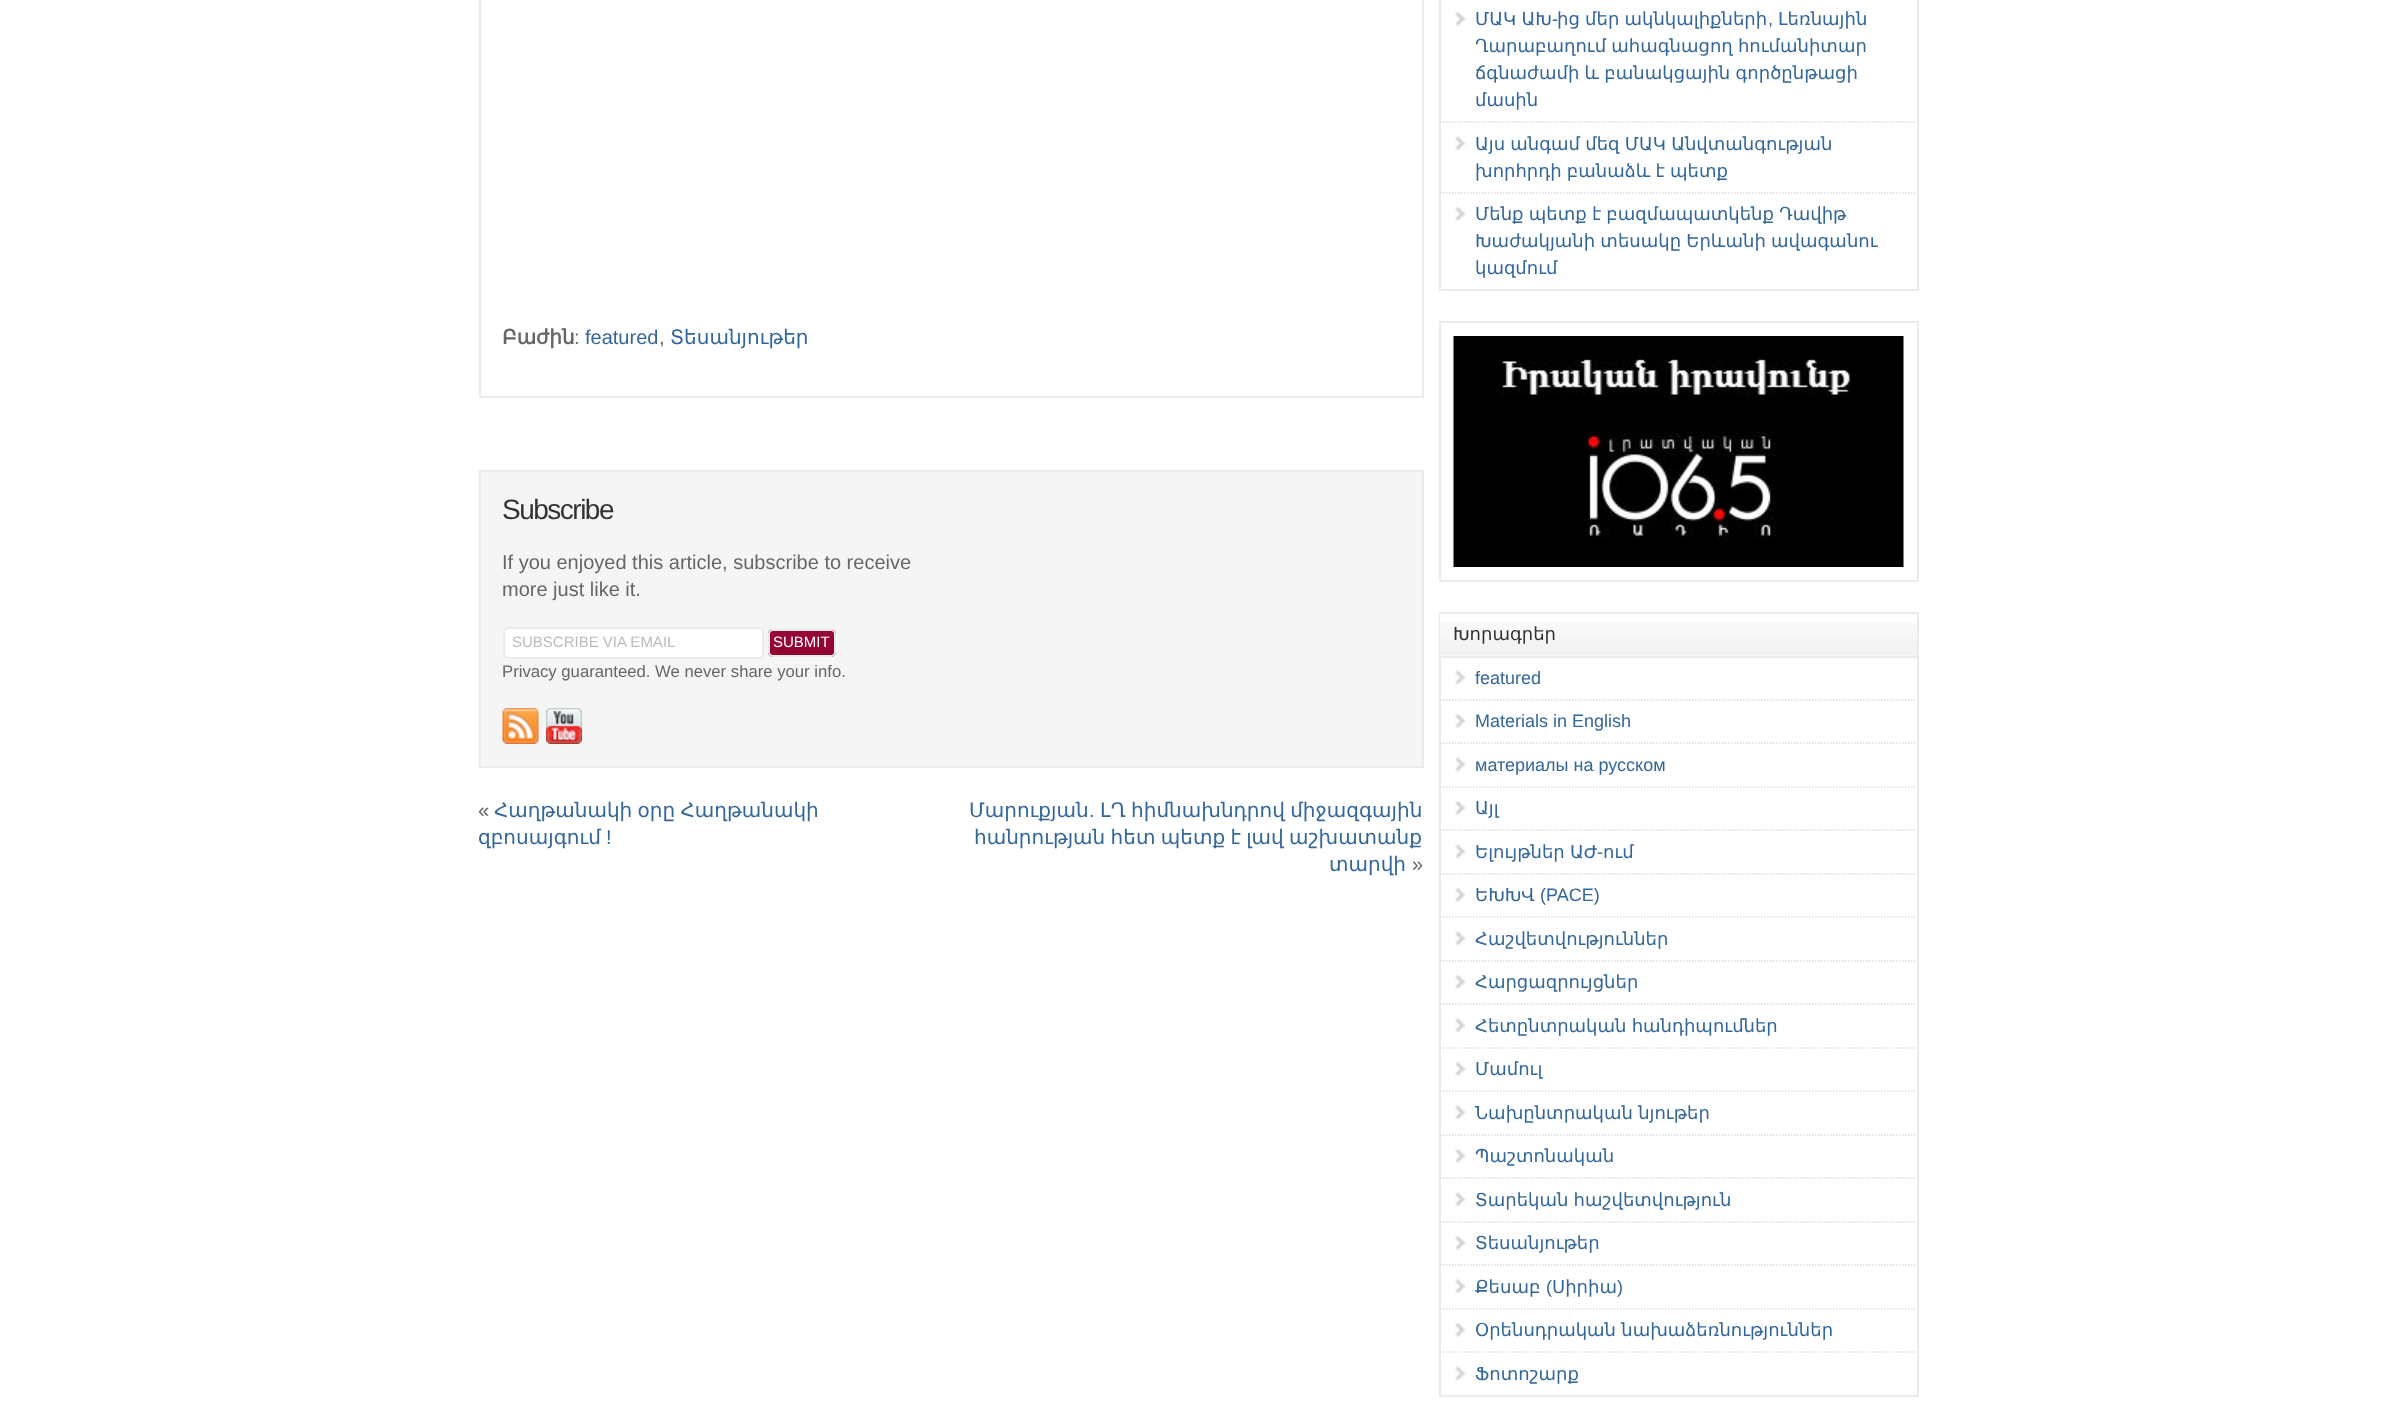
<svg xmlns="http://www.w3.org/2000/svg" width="2395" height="1405">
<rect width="100%" height="100%" fill="#fff"/>
<rect x="480" y="-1" width="943" height="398" fill="none" stroke="#ebebeb" stroke-width="2"/>
<text x="502" y="344" style="font-family:DejaVu Sans;font-size:20px;font-weight:bold;fill:#666">Բաժին</text>
<text x="574" y="344" style="font-family:Liberation Sans;font-size:20px;fill:#666">:</text>
<text x="585" y="344" style="font-family:Liberation Sans;font-size:20px;fill:#369">featured</text>
<text x="659" y="344" style="font-family:Liberation Sans;font-size:20px;fill:#666">,</text>
<text x="670" y="344" style="font-family:DejaVu Sans;font-size:20px;fill:#369">Տեսանյութեր</text>
<rect x="480" y="471" width="943" height="296" fill="#f5f5f5" stroke="#ebebeb" stroke-width="2"/>
<text x="502" y="519" style="font-family:Liberation Sans;font-size:28px;letter-spacing:-1.5px;fill:#333">Subscribe</text>
<text x="502" y="569" style="font-family:Liberation Sans;font-size:20px;fill:#666">If you enjoyed this article, subscribe to receive</text>
<text x="502" y="596" style="font-family:Liberation Sans;font-size:20px;fill:#666">more just like it.</text>
<rect x="504" y="628" width="259" height="30" rx="4" fill="#fff" stroke="#ebebeb" stroke-width="2"/>
<text x="512" y="647" style="font-family:Liberation Sans;font-size:15px;fill:#bbb">SUBSCRIBE VIA EMAIL</text>
<rect x="768" y="629" width="68" height="28" rx="5" fill="#990031"/>
<image x="768" y="629" width="67" height="26" href="media/1.png"/>
<rect x="769" y="630" width="66" height="26" rx="4" fill="none" stroke="#ebebeb" stroke-width="2"/>
<text x="773" y="647" style="font-family:Liberation Sans;font-size:15px;fill:#fff">SUBMIT</text>
<text x="502" y="677" style="font-family:Liberation Sans;font-size:16.7px;fill:#666">Privacy guaranteed. We never share your info.</text>
<image x="502" y="708" width="37" height="36" href="media/2.png"/>
<image x="546" y="708" width="36" height="36" href="media/3.png"/>
<text x="478" y="817" style="font-family:Liberation Sans;font-size:20px;fill:#666">«</text>
<text x="494" y="817" word-spacing="-1" style="font-family:DejaVu Sans;font-size:20px;fill:#369">Հաղթանակի օրը Հաղթանակի</text>
<text x="478" y="844" style="font-family:DejaVu Sans;font-size:20px;fill:#369">զբոսայգում</text>
<text x="606" y="844" style="font-family:Liberation Sans;font-size:20px;fill:#369">!</text>
<text x="969" y="817" style="font-family:DejaVu Sans;font-size:20px;fill:#369">Մարուքյան</text>
<text x="1089" y="817" style="font-family:Liberation Sans;font-size:20px;fill:#369">.</text>
<text x="1100" y="817" word-spacing="-1" style="font-family:DejaVu Sans;font-size:20px;fill:#369">ԼՂ հիմնախնդրով միջազգային</text>
<text x="974" y="844" word-spacing="-1" style="font-family:DejaVu Sans;font-size:20px;fill:#369">հանրության հետ պետք է լավ աշխատանք</text>
<text x="1329" y="871" style="font-family:DejaVu Sans;font-size:20px;fill:#369">տարվի</text>
<text x="1412" y="871" style="font-family:Liberation Sans;font-size:20px;fill:#666">»</text>
<rect x="1440" y="-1" width="478" height="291" fill="none" stroke="#ebebeb" stroke-width="2"/>
<image x="1455" y="12" width="11" height="14" href="media/4.png"/>
<path d="M1440 122h477" fill="none" stroke="#ddd" stroke-width="1.5" stroke-dasharray="1.5 1.5"/>
<text x="1475" y="25" word-spacing="-0.5" style="font-family:DejaVu Sans;font-size:18px;fill:#369">ՄԱԿ ԱԽ ից մեր ակնկալիքների</text>
<text x="1778" y="25" style="font-family:DejaVu Sans;font-size:18px;fill:#369">Լեռնային</text>
<text x="1552" y="25" style="font-family:Liberation Sans;font-size:18px;fill:#369">-</text>
<text x="1768" y="25" style="font-family:Liberation Sans;font-size:18px;fill:#369">,</text>
<text x="1475" y="52" word-spacing="-0.5" style="font-family:DejaVu Sans;font-size:18px;fill:#369">Ղարաբաղում ահագնացող հումանիտար</text>
<text x="1475" y="79" word-spacing="-0.5" style="font-family:DejaVu Sans;font-size:18px;fill:#369">ճգնաժամի և բանակցային գործընթացի</text>
<text x="1475" y="106" style="font-family:DejaVu Sans;font-size:18px;fill:#369">մասին</text>
<image x="1455" y="136" width="11" height="15" href="media/5.png"/>
<path d="M1440 193h477" fill="none" stroke="#ddd" stroke-width="1.5" stroke-dasharray="1.5 1.5"/>
<text x="1475" y="150" word-spacing="-0.5" style="font-family:DejaVu Sans;font-size:18px;fill:#369">Այս անգամ մեզ ՄԱԿ Անվտանգության</text>
<text x="1475" y="177" word-spacing="-0.5" style="font-family:DejaVu Sans;font-size:18px;fill:#369">խորհրդի բանաձև է պետք</text>
<image x="1455" y="207" width="11" height="14" href="media/4.png"/>
<text x="1475" y="220" word-spacing="-0.5" style="font-family:DejaVu Sans;font-size:18px;fill:#369">Մենք պետք է բազմապատկենք Դավիթ</text>
<text x="1475" y="247" word-spacing="-0.5" style="font-family:DejaVu Sans;font-size:18px;fill:#369">Խաժակյանի տեսակը Երևանի ավագանու</text>
<text x="1475" y="274" style="font-family:DejaVu Sans;font-size:18px;fill:#369">կազմում</text>
<rect x="1440" y="322" width="478" height="259" fill="none" stroke="#ebebeb" stroke-width="2"/>
<image x="1453" y="336" width="451" height="231" href="media/6.png"/>
<rect x="1440" y="613" width="478" height="783" fill="none" stroke="#ebebeb" stroke-width="2"/>
<rect x="1440" y="614" width="1" height="42" fill="#fff"/>
<image x="1440" y="622" width="477" height="34" href="media/7.png"/>
<rect x="1440" y="656" width="477" height="2" fill="#ebebeb"/>
<text x="1453" y="640" style="font-family:DejaVu Sans;font-size:18px;fill:#333">Խորագրեր</text>
<image x="1455" y="670" width="11" height="15" href="media/5.png"/>
<path d="M1440 700h477" fill="none" stroke="#ddd" stroke-width="1.5" stroke-dasharray="1.5 1.5"/>
<text x="1475" y="684" style="font-family:Liberation Sans;font-size:18px;fill:#369">featured</text>
<image x="1455" y="714" width="11" height="14" href="media/4.png"/>
<path d="M1440 743h477" fill="none" stroke="#ddd" stroke-width="1.5" stroke-dasharray="1.5 1.5"/>
<text x="1475" y="727" style="font-family:Liberation Sans;font-size:18px;fill:#369">Materials in English</text>
<image x="1455" y="757" width="11" height="15" href="media/5.png"/>
<path d="M1440 787h477" fill="none" stroke="#ddd" stroke-width="1.5" stroke-dasharray="1.5 1.5"/>
<text x="1475" y="771" style="font-family:Liberation Sans;font-size:18px;fill:#369">материалы на русском</text>
<image x="1455" y="801" width="11" height="14" href="media/4.png"/>
<path d="M1440 830h477" fill="none" stroke="#ddd" stroke-width="1.5" stroke-dasharray="1.5 1.5"/>
<text x="1475" y="814" style="font-family:DejaVu Sans;font-size:18px;fill:#369">Այլ</text>
<image x="1455" y="844" width="11" height="15" href="media/5.png"/>
<path d="M1440 874h477" fill="none" stroke="#ddd" stroke-width="1.5" stroke-dasharray="1.5 1.5"/>
<text x="1475" y="858" word-spacing="-0.5" style="font-family:DejaVu Sans;font-size:18px;fill:#369">Ելույթներ ԱԺ</text>
<text x="1597" y="858" style="font-family:Liberation Sans;font-size:18px;fill:#369">-</text>
<text x="1603" y="858" style="font-family:DejaVu Sans;font-size:18px;fill:#369">ում</text>
<image x="1455" y="888" width="11" height="14" href="media/4.png"/>
<path d="M1440 917h477" fill="none" stroke="#ddd" stroke-width="1.5" stroke-dasharray="1.5 1.5"/>
<text x="1475" y="901" style="font-family:DejaVu Sans;font-size:18px;fill:#369">ԵԽԽՎ</text>
<text x="1540" y="901" style="font-family:Liberation Sans;font-size:18px;fill:#369">(PACE)</text>
<image x="1455" y="931" width="11" height="15" href="media/5.png"/>
<path d="M1440 961h477" fill="none" stroke="#ddd" stroke-width="1.5" stroke-dasharray="1.5 1.5"/>
<text x="1475" y="945" style="font-family:DejaVu Sans;font-size:18px;fill:#369">Հաշվետվություններ</text>
<image x="1455" y="975" width="11" height="14" href="media/4.png"/>
<path d="M1440 1004h477" fill="none" stroke="#ddd" stroke-width="1.5" stroke-dasharray="1.5 1.5"/>
<text x="1475" y="988" style="font-family:DejaVu Sans;font-size:18px;fill:#369">Հարցազրույցներ</text>
<image x="1455" y="1018" width="11" height="15" href="media/5.png"/>
<path d="M1440 1048h477" fill="none" stroke="#ddd" stroke-width="1.5" stroke-dasharray="1.5 1.5"/>
<text x="1475" y="1032" word-spacing="-0.5" style="font-family:DejaVu Sans;font-size:18px;fill:#369">Հետընտրական հանդիպումներ</text>
<image x="1455" y="1062" width="11" height="14" href="media/4.png"/>
<path d="M1440 1091h477" fill="none" stroke="#ddd" stroke-width="1.5" stroke-dasharray="1.5 1.5"/>
<text x="1475" y="1075" style="font-family:DejaVu Sans;font-size:18px;fill:#369">Մամուլ</text>
<image x="1455" y="1105" width="11" height="15" href="media/5.png"/>
<path d="M1440 1135h477" fill="none" stroke="#ddd" stroke-width="1.5" stroke-dasharray="1.5 1.5"/>
<text x="1475" y="1119" word-spacing="-0.5" style="font-family:DejaVu Sans;font-size:18px;fill:#369">Նախընտրական նյութեր</text>
<image x="1455" y="1149" width="11" height="14" href="media/4.png"/>
<path d="M1440 1178h477" fill="none" stroke="#ddd" stroke-width="1.5" stroke-dasharray="1.5 1.5"/>
<text x="1475" y="1162" style="font-family:DejaVu Sans;font-size:18px;fill:#369">Պաշտոնական</text>
<image x="1455" y="1192" width="11" height="15" href="media/5.png"/>
<path d="M1440 1222h477" fill="none" stroke="#ddd" stroke-width="1.5" stroke-dasharray="1.5 1.5"/>
<text x="1475" y="1206" word-spacing="-0.5" style="font-family:DejaVu Sans;font-size:18px;fill:#369">Տարեկան հաշվետվություն</text>
<image x="1455" y="1236" width="11" height="14" href="media/4.png"/>
<path d="M1440 1265h477" fill="none" stroke="#ddd" stroke-width="1.5" stroke-dasharray="1.5 1.5"/>
<text x="1475" y="1249" style="font-family:DejaVu Sans;font-size:18px;fill:#369">Տեսանյութեր</text>
<image x="1455" y="1279" width="11" height="15" href="media/5.png"/>
<path d="M1440 1309h477" fill="none" stroke="#ddd" stroke-width="1.5" stroke-dasharray="1.5 1.5"/>
<text x="1475" y="1293" style="font-family:DejaVu Sans;font-size:18px;fill:#369">Քեսաբ</text>
<text x="1546" y="1293" style="font-family:Liberation Sans;font-size:18px;fill:#369">(</text>
<text x="1552" y="1293" style="font-family:DejaVu Sans;font-size:18px;fill:#369">Սիրիա</text>
<text x="1617" y="1293" style="font-family:Liberation Sans;font-size:18px;fill:#369">)</text>
<image x="1455" y="1323" width="11" height="14" href="media/4.png"/>
<path d="M1440 1352h477" fill="none" stroke="#ddd" stroke-width="1.5" stroke-dasharray="1.5 1.5"/>
<text x="1475" y="1336" word-spacing="-0.5" style="font-family:DejaVu Sans;font-size:18px;fill:#369">Օրենսդրական նախաձեռնություններ</text>
<image x="1455" y="1366" width="11" height="15" href="media/5.png"/>
<text x="1475" y="1380" style="font-family:DejaVu Sans;font-size:18px;fill:#369">Ֆոտոշարք</text>
</svg>
